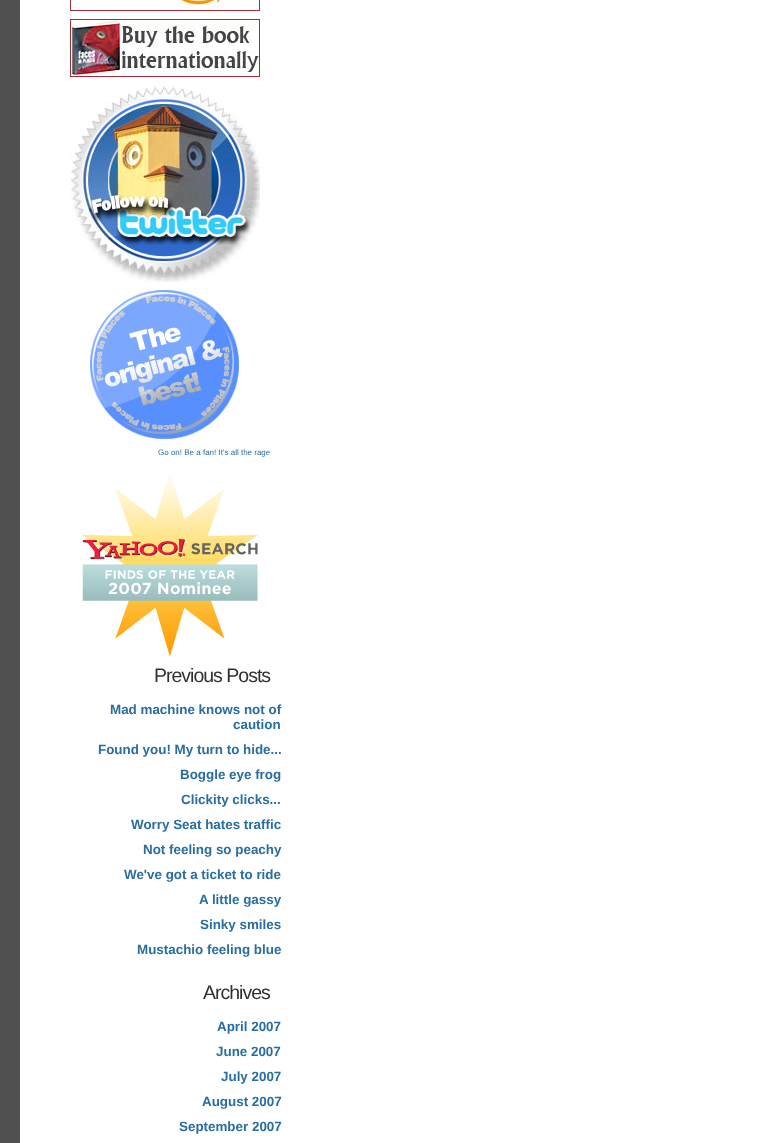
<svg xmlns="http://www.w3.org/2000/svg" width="768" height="1143">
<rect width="100%" height="100%" fill="#fff"/>
<rect x="10" y="-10" width="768" height="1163" fill="none" stroke="#505050" stroke-width="20"/>
<image x="70" y="0" width="190" height="11" href="media/1.png"/>
<image x="70" y="19" width="190" height="58" href="media/2.png"/>
<image x="70" y="85" width="190" height="197" href="media/3.png"/>
<image x="90" y="290" width="149" height="149" href="media/4.png"/>
<text x="158" y="455" style="font-family:Liberation Sans;font-size:8px;fill:#286ea0">Go on! Be a fan! It's all the rage</text>
<image x="82" y="473" width="176" height="183" href="media/5.png"/>
<text x="154" y="682" style="font-family:Liberation Sans;font-size:19.5px;letter-spacing:-1px;fill:#303030">Previous Posts</text>
<text x="110" y="714" style="font-family:Liberation Sans;font-size:13.4px;font-weight:bold;fill:#286ea0">Mad machine knows not of</text>
<text x="233" y="729" style="font-family:Liberation Sans;font-size:13.4px;font-weight:bold;fill:#286ea0">caution</text>
<text x="98" y="754" style="font-family:Liberation Sans;font-size:13.4px;font-weight:bold;fill:#286ea0">Found you! My turn to hide...</text>
<text x="180" y="779" style="font-family:Liberation Sans;font-size:13.4px;font-weight:bold;fill:#286ea0">Boggle eye frog</text>
<text x="181" y="804" style="font-family:Liberation Sans;font-size:13.4px;font-weight:bold;fill:#286ea0">Clickity clicks...</text>
<text x="131" y="829" style="font-family:Liberation Sans;font-size:13.4px;font-weight:bold;fill:#286ea0">Worry Seat hates traffic</text>
<text x="143" y="854" style="font-family:Liberation Sans;font-size:13.4px;font-weight:bold;fill:#286ea0">Not feeling so peachy</text>
<text x="124" y="879" style="font-family:Liberation Sans;font-size:13.4px;font-weight:bold;fill:#286ea0">We've got a ticket to ride</text>
<text x="199" y="904" style="font-family:Liberation Sans;font-size:13.4px;font-weight:bold;fill:#286ea0">A little gassy</text>
<text x="200" y="929" style="font-family:Liberation Sans;font-size:13.4px;font-weight:bold;fill:#286ea0">Sinky smiles</text>
<text x="137" y="954" style="font-family:Liberation Sans;font-size:13.4px;font-weight:bold;fill:#286ea0">Mustachio feeling blue</text>
<text x="203" y="999" style="font-family:Liberation Sans;font-size:19.5px;letter-spacing:-1px;fill:#303030">Archives</text>
<text x="217" y="1031" style="font-family:Liberation Sans;font-size:13.4px;font-weight:bold;fill:#286ea0">April 2007</text>
<text x="216" y="1056" style="font-family:Liberation Sans;font-size:13.4px;font-weight:bold;fill:#286ea0">June 2007</text>
<text x="221" y="1081" style="font-family:Liberation Sans;font-size:13.4px;font-weight:bold;fill:#286ea0">July 2007</text>
<text x="202" y="1106" style="font-family:Liberation Sans;font-size:13.4px;font-weight:bold;fill:#286ea0">August 2007</text>
<text x="179" y="1131" style="font-family:Liberation Sans;font-size:13.4px;font-weight:bold;fill:#286ea0">September 2007</text>
</svg>
